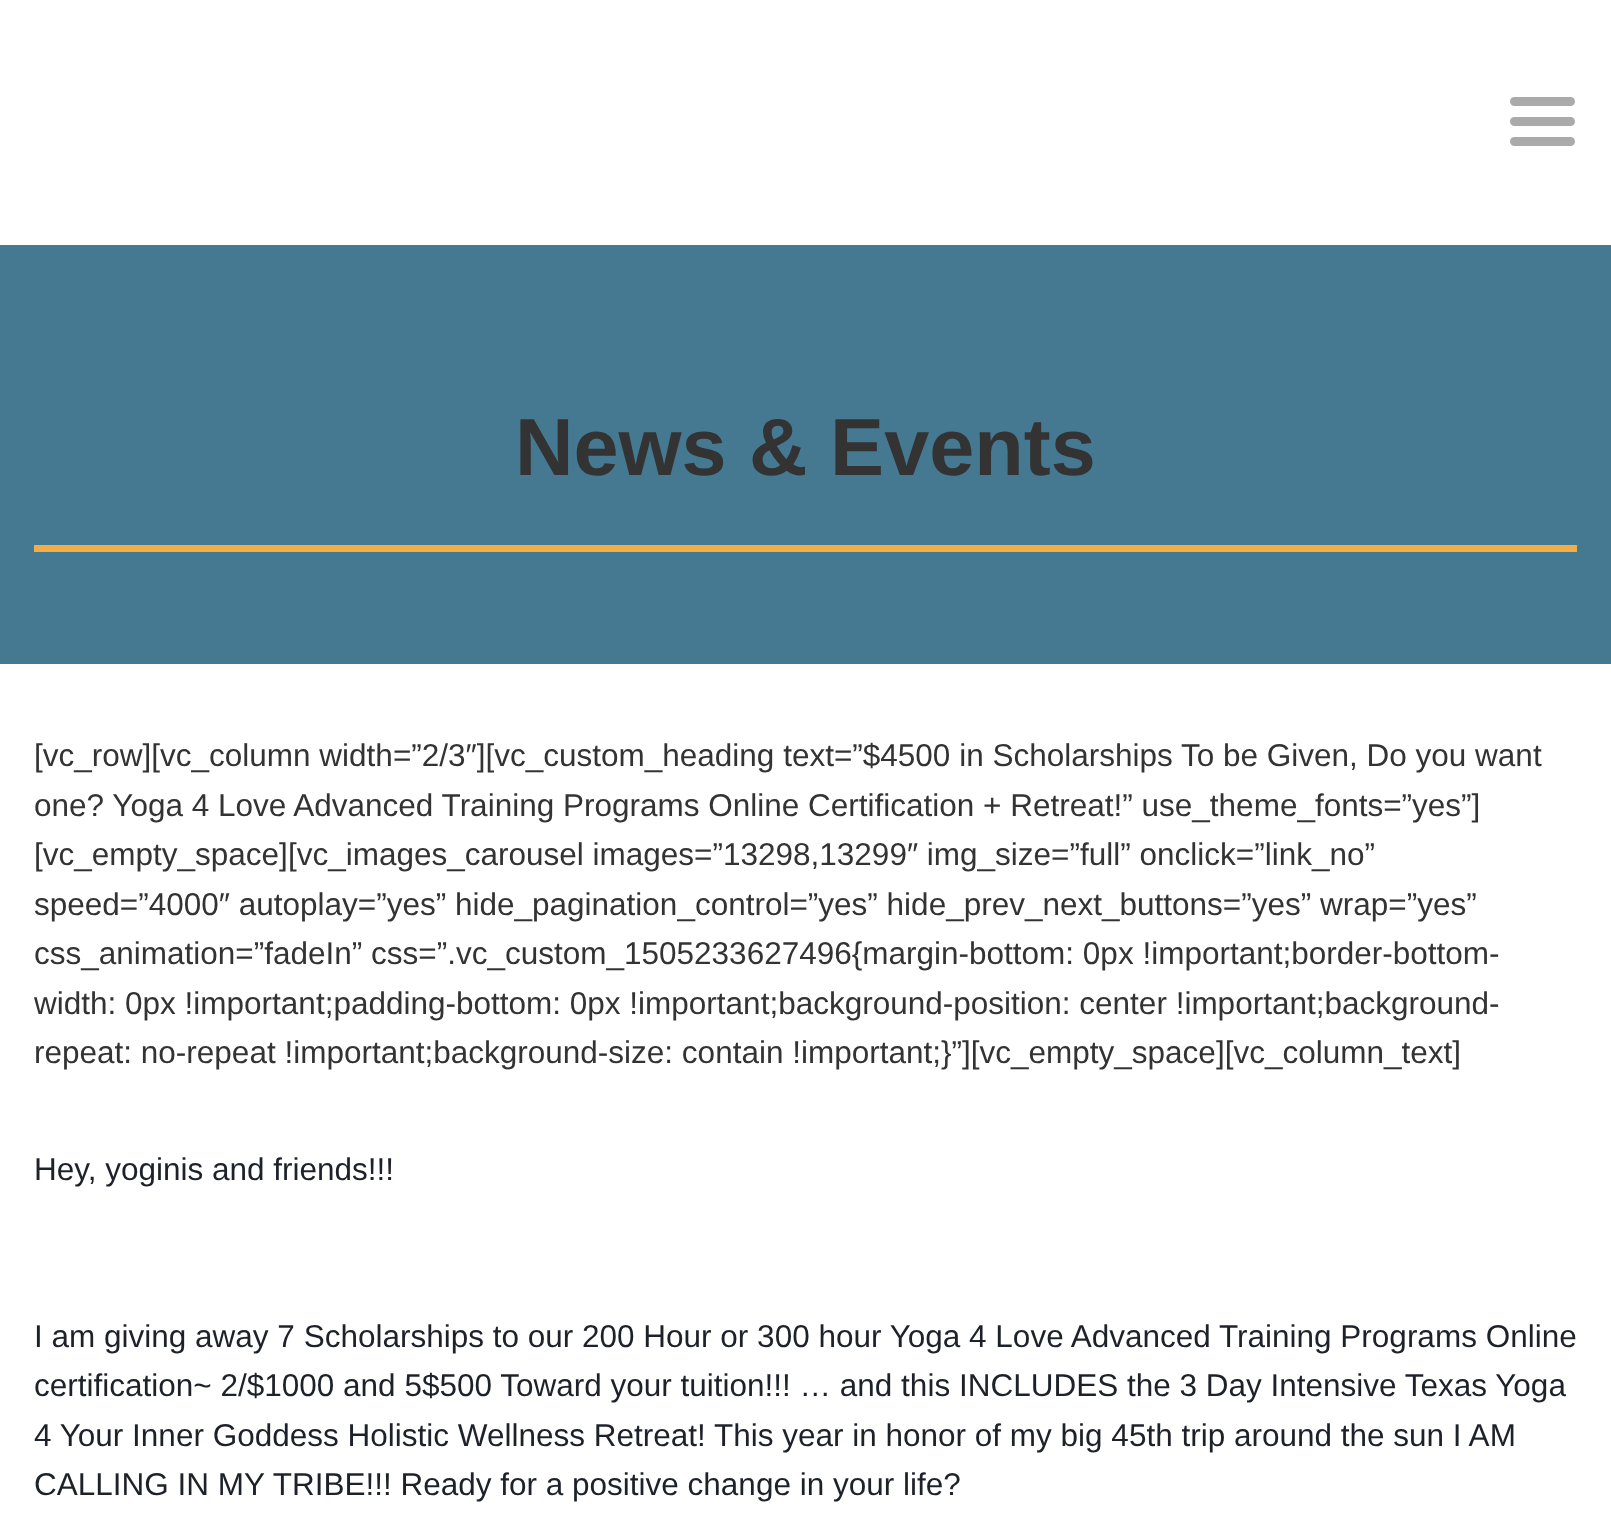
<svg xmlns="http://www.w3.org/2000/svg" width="1611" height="1524">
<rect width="100%" height="100%" fill="#fff"/>
<rect x="1510" y="97" width="65" height="9" rx="4.5" fill="#aaa"/>
<rect x="1510" y="117" width="65" height="9" rx="4.5" fill="#aaa"/>
<rect x="1510" y="137" width="65" height="9" rx="4.5" fill="#aaa"/>
<rect y="245" width="1611" height="419" fill="#457992"/>
<text x="515" y="475" style="font-family:Liberation Sans;font-size:81px;font-weight:bold;fill:#333">News &amp; Events</text>
<rect x="34" y="545" width="1543" height="7" fill="#f4ac45"/>
<text x="34" y="766" style="font-family:Liberation Sans;font-size:31.5px;fill:#333">[vc_row][vc_column width=”2/3″][vc_custom_heading text=”$4500 in Scholarships To be Given, Do you want</text>
<text x="34" y="816" style="font-family:Liberation Sans;font-size:31.5px;fill:#333">one? Yoga 4 Love Advanced Training Programs Online Certification + Retreat!” use_theme_fonts=”yes”]</text>
<text x="34" y="865" style="font-family:Liberation Sans;font-size:31.5px;fill:#333">[vc_empty_space][vc_images_carousel images=”13298,13299″ img_size=”full” onclick=”link_no”</text>
<text x="34" y="915" style="font-family:Liberation Sans;font-size:31.5px;fill:#333">speed=”4000″ autoplay=”yes” hide_pagination_control=”yes” hide_prev_next_buttons=”yes” wrap=”yes”</text>
<text x="34" y="964" style="font-family:Liberation Sans;font-size:31.5px;fill:#333">css_animation=”fadeIn” css=”.vc_custom_1505233627496{margin-bottom: 0px !important;border-bottom-</text>
<text x="34" y="1014" style="font-family:Liberation Sans;font-size:31.5px;fill:#333">width: 0px !important;padding-bottom: 0px !important;background-position: center !important;background-</text>
<text x="34" y="1063" style="font-family:Liberation Sans;font-size:31.5px;fill:#333">repeat: no-repeat !important;background-size: contain !important;}”][vc_empty_space][vc_column_text]</text>
<text x="34" y="1180" style="font-family:Liberation Sans;font-size:31.5px;fill:#1d2129">Hey, yoginis and friends!!!</text>
<text x="34" y="1347" style="font-family:Liberation Sans;font-size:31.5px;fill:#1d2129">I am giving away 7 Scholarships to our 200 Hour or 300 hour Yoga 4 Love Advanced Training Programs Online</text>
<text x="34" y="1396" style="font-family:Liberation Sans;font-size:31.5px;fill:#1d2129">certification~ 2/$1000 and 5$500 Toward your tuition!!! … and this INCLUDES the 3 Day Intensive Texas Yoga</text>
<text x="34" y="1446" style="font-family:Liberation Sans;font-size:31.5px;fill:#1d2129">4 Your Inner Goddess Holistic Wellness Retreat! This year in honor of my big 45th trip around the sun I AM</text>
<text x="34" y="1495" style="font-family:Liberation Sans;font-size:31.5px;fill:#1d2129">CALLING IN MY TRIBE!!! Ready for a positive change in your life?</text>
</svg>
